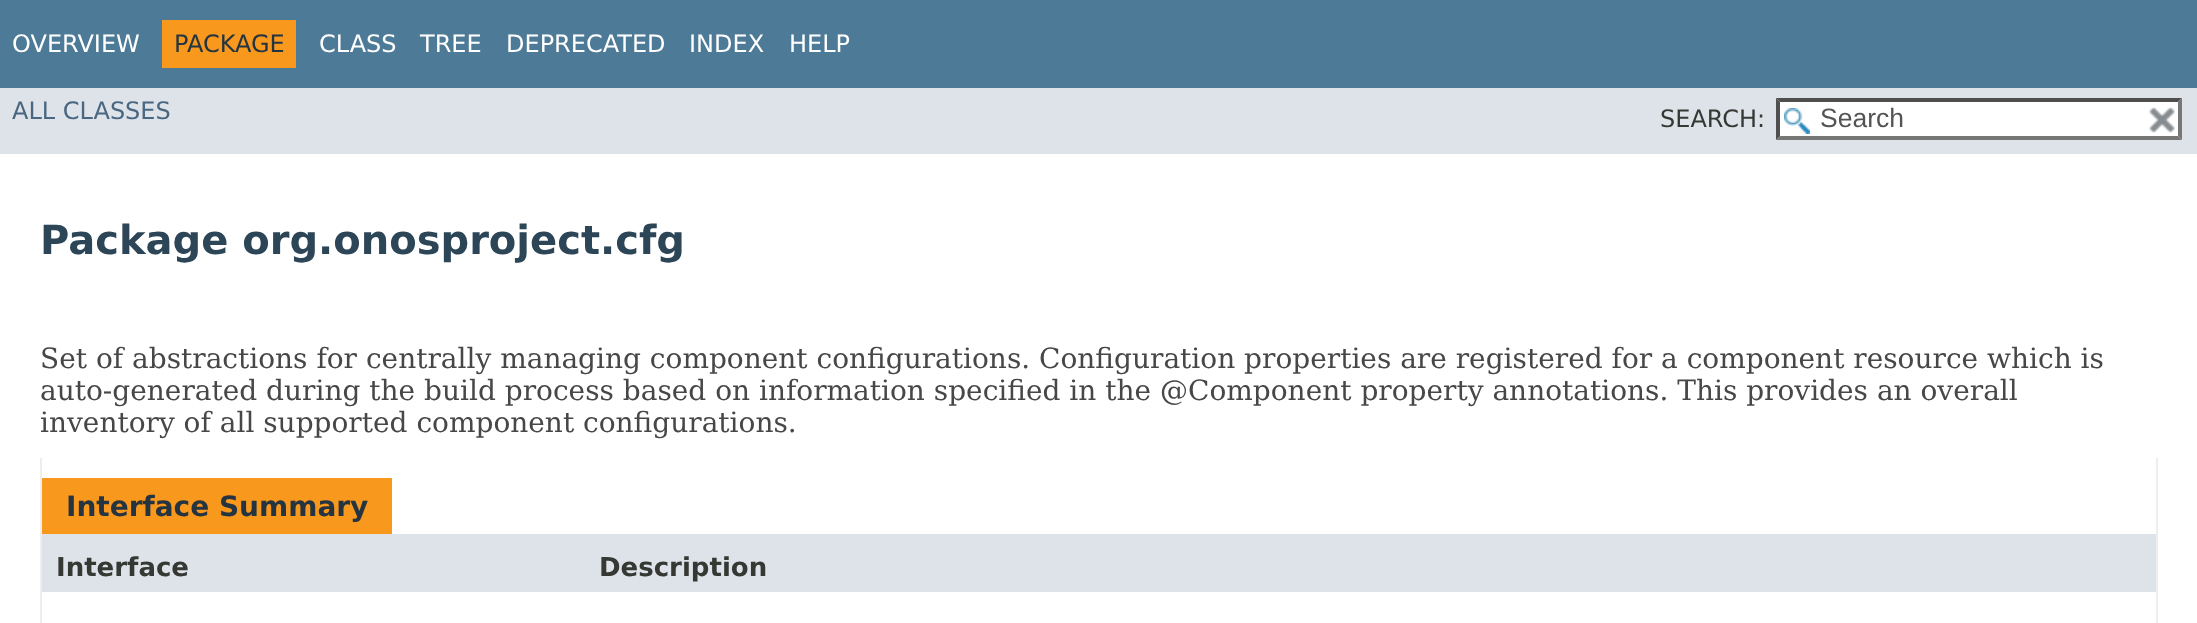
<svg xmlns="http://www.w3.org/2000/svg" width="2197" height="623">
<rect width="100%" height="100%" fill="#fff"/>
<rect width="2197" height="88" fill="#4d7a97"/>
<text x="12" y="52" style="font-family:DejaVu Sans;font-size:24px;fill:#fff">OVERVIEW</text>
<rect x="162" y="20" width="134" height="48" fill="#f8981d"/>
<text x="174" y="52" style="font-family:DejaVu Sans;font-size:24px;fill:#253441">PACKAGE</text>
<text x="319" y="52" style="font-family:DejaVu Sans;font-size:24px;fill:#fff">CLASS</text>
<text x="420" y="52" style="font-family:DejaVu Sans;font-size:24px;fill:#fff">TREE</text>
<text x="506" y="52" style="font-family:DejaVu Sans;font-size:24px;fill:#fff">DEPRECATED</text>
<text x="689" y="52" style="font-family:DejaVu Sans;font-size:24px;fill:#fff">INDEX</text>
<text x="789" y="52" style="font-family:DejaVu Sans;font-size:24px;fill:#fff">HELP</text>
<rect y="88" width="2197" height="66" fill="#dee3e9"/>
<text x="12" y="119" style="font-family:DejaVu Sans;font-size:24px;fill:#4a6782">ALL CLASSES</text>
<text x="1660" y="127" style="font-family:DejaVu Sans;font-size:24px;fill:#353833">SEARCH:</text>
<rect x="1776" y="98" width="406" height="42" fill="#fff"/>
<image x="1784" y="108" width="26" height="26" href="media/1.png"/>
<path d="M1776 98h406l-4 4h-398z" fill="#4f4f4f"/>
<path d="M2182 98v42l-4-4v-34z" fill="#767676"/>
<path d="M2182 140h-406l4-4h398z" fill="#767676"/>
<path d="M1776 140v-42l4 4v34z" fill="#4f4f4f"/>
<text x="1820" y="127" style="font-family:Liberation Sans;font-size:26.5px;fill:#545454">Search</text>
<image x="2148" y="107" width="27" height="26" href="media/2.png"/>
<text x="40" y="254" style="font-family:DejaVu Sans;font-size:40px;font-weight:bold;fill:#2c4557">Package org.onosproject.cfg</text>
<text x="40" y="368" style="font-family:DejaVu Serif;font-size:28px;fill:#474747">Set of abstractions for centrally managing component configurations. Configuration properties are registered for a component resource which is</text>
<text x="40" y="400" style="font-family:DejaVu Serif;font-size:28px;fill:#474747">auto-generated during the build process based on information specified in the @Component property annotations. This provides an overall</text>
<text x="40" y="432" style="font-family:DejaVu Serif;font-size:28px;fill:#474747">inventory of all supported component configurations.</text>
<rect x="2156" y="458" width="2" height="165" fill="#eee"/>
<rect x="40" y="458" width="2" height="165" fill="#eee"/>
<rect x="42" y="478" width="350" height="56" fill="#f8981d"/>
<text x="66" y="516" style="font-family:DejaVu Sans;font-size:28px;font-weight:bold;fill:#253441">Interface Summary</text>
<rect x="42" y="534" width="2114" height="58" fill="#dee3e9"/>
<text x="56" y="576" style="font-family:DejaVu Sans;font-size:26px;font-weight:bold;fill:#353833">Interface</text>
<text x="599" y="576" style="font-family:DejaVu Sans;font-size:26px;font-weight:bold;fill:#353833">Description</text>
</svg>
